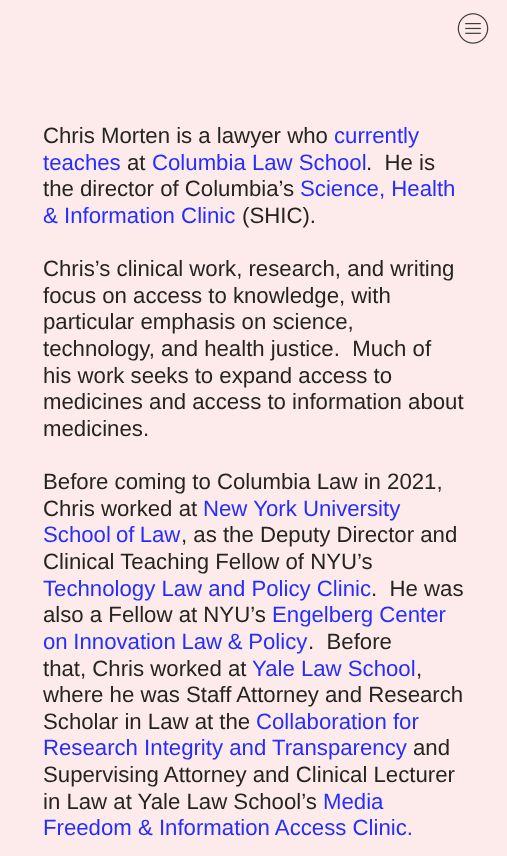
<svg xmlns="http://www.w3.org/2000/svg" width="507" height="856">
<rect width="100%" height="100%" fill="#fdebeb"/>
<image x="457" y="13" width="32" height="31" href="media/1.png"/>
<text x="43" y="143" style="font-family:Liberation Sans;font-size:22.2px;fill:#262323">Chris Morten is a lawyer who</text>
<text x="334" y="143" style="font-family:Liberation Sans;font-size:22.2px;fill:#262dfc">currently</text>
<text x="43" y="170" style="font-family:Liberation Sans;font-size:22.2px;fill:#262dfc">teaches</text>
<text x="127" y="170" style="font-family:Liberation Sans;font-size:22.2px;fill:#262323">at</text>
<text x="152" y="170" style="font-family:Liberation Sans;font-size:22.2px;fill:#262dfc">Columbia Law School</text>
<text x="366" y="170" style="font-family:Liberation Sans;font-size:22.2px;fill:#262323" xml:space="preserve">.  He is</text>
<text x="43" y="196" style="font-family:Liberation Sans;font-size:22.2px;fill:#262323">the director of Columbia’s</text>
<text x="300" y="196" style="font-family:Liberation Sans;font-size:22.2px;fill:#262dfc">Science, Health</text>
<text x="43" y="223" style="font-family:Liberation Sans;font-size:22.2px;fill:#262dfc">&amp; Information Clinic</text>
<text x="242" y="223" style="font-family:Liberation Sans;font-size:22.2px;fill:#262323">(SHIC).</text>
<text x="43" y="276" style="font-family:Liberation Sans;font-size:22.2px;fill:#262323">Chris’s clinical work, research, and writing</text>
<text x="43" y="303" style="font-family:Liberation Sans;font-size:22.2px;fill:#262323">focus on access to knowledge, with</text>
<text x="43" y="329" style="font-family:Liberation Sans;font-size:22.2px;fill:#262323">particular emphasis on science,</text>
<text x="43" y="356" style="font-family:Liberation Sans;font-size:22.2px;fill:#262323" xml:space="preserve">technology, and health justice.  Much of</text>
<text x="43" y="383" style="font-family:Liberation Sans;font-size:22.2px;fill:#262323">his work seeks to expand access to</text>
<text x="43" y="409" style="font-family:Liberation Sans;font-size:22.2px;fill:#262323">medicines and access to information about</text>
<text x="43" y="436" style="font-family:Liberation Sans;font-size:22.2px;fill:#262323">medicines.</text>
<text x="43" y="489" style="font-family:Liberation Sans;font-size:22.2px;fill:#262323">Before coming to Columbia Law in 2021,</text>
<text x="43" y="516" style="font-family:Liberation Sans;font-size:22.2px;fill:#262323">Chris worked at</text>
<text x="203" y="516" style="font-family:Liberation Sans;font-size:22.2px;fill:#262dfc">New York University</text>
<text x="43" y="542" word-spacing="-1" style="font-family:Liberation Sans;font-size:22.2px;fill:#262dfc">School of Law</text>
<text x="181" y="542" style="font-family:Liberation Sans;font-size:22.2px;fill:#262323">, as the Deputy Director and</text>
<text x="43" y="569" style="font-family:Liberation Sans;font-size:22.2px;fill:#262323">Clinical Teaching Fellow of NYU’s</text>
<text x="43" y="596" style="font-family:Liberation Sans;font-size:22.2px;fill:#262dfc">Technology Law and Policy Clinic</text>
<text x="371" y="596" style="font-family:Liberation Sans;font-size:22.2px;fill:#262323" xml:space="preserve">.  He was</text>
<text x="43" y="622" style="font-family:Liberation Sans;font-size:22.2px;fill:#262323">also a Fellow at NYU’s</text>
<text x="272" y="622" style="font-family:Liberation Sans;font-size:22.2px;fill:#262dfc">Engelberg Center</text>
<text x="43" y="649" word-spacing="-0.5" style="font-family:Liberation Sans;font-size:22.2px;fill:#262dfc">on Innovation Law &amp; Policy</text>
<text x="308" y="649" style="font-family:Liberation Sans;font-size:22.2px;fill:#262323" xml:space="preserve">.  Before</text>
<text x="43" y="676" style="font-family:Liberation Sans;font-size:22.2px;fill:#262323">that, Chris worked at</text>
<text x="252" y="676" style="font-family:Liberation Sans;font-size:22.2px;fill:#262dfc">Yale Law School</text>
<text x="416" y="676" style="font-family:Liberation Sans;font-size:22.2px;fill:#262323">,</text>
<text x="43" y="702" style="font-family:Liberation Sans;font-size:22.2px;fill:#262323">where he was Staff Attorney and Research</text>
<text x="43" y="729" style="font-family:Liberation Sans;font-size:22.2px;fill:#262323">Scholar in Law at the</text>
<text x="256" y="729" style="font-family:Liberation Sans;font-size:22.2px;fill:#262dfc">Collaboration for</text>
<text x="43" y="755" style="font-family:Liberation Sans;font-size:22.2px;fill:#262dfc">Research Integrity and Transparency</text>
<text x="413" y="755" style="font-family:Liberation Sans;font-size:22.2px;fill:#262323">and</text>
<text x="43" y="782" style="font-family:Liberation Sans;font-size:22.2px;fill:#262323">Supervising Attorney and Clinical Lecturer</text>
<text x="43" y="809" style="font-family:Liberation Sans;font-size:22.2px;fill:#262323">in Law at Yale Law School’s</text>
<text x="323" y="809" style="font-family:Liberation Sans;font-size:22.2px;fill:#262dfc">Media</text>
<text x="43" y="835" style="font-family:Liberation Sans;font-size:22.2px;fill:#262dfc">Freedom &amp; Information Access Clinic.</text>
</svg>
